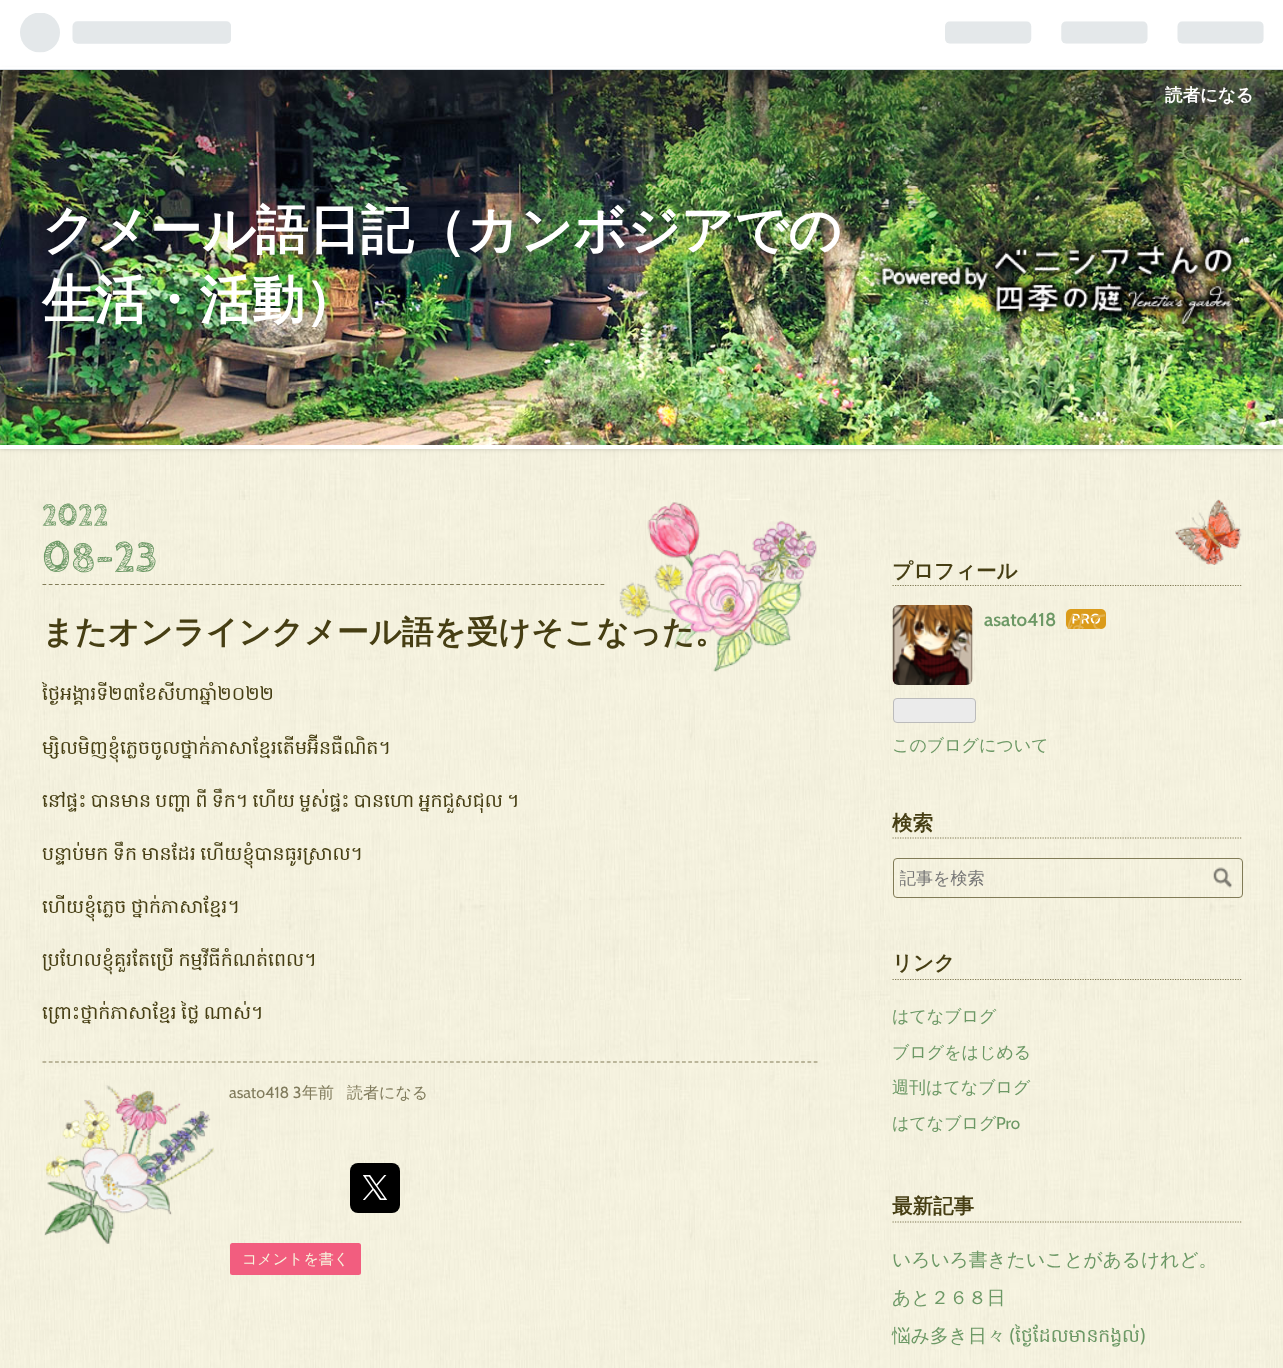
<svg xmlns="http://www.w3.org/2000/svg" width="1283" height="1368">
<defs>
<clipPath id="clip1"><rect x="1066" y="609" width="40" height="20"/></clipPath>
<clipPath id="clip2"><rect x="900" y="868" width="313" height="22"/></clipPath>
</defs>
<rect width="100%" height="100%" fill="#fff"/>
<image x="0" y="449" width="1283" height="919" href="media/1.png"/>
<rect y="70" width="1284" height="379" fill="#00000033" filter="blur(2px)"/>
<rect y="67" width="1283" height="2" fill="#fff"/>
<rect y="69" width="1283" height="1" fill="#d2d8dd"/>
<image x="20" y="13" width="211" height="40" href="media/2.png"/>
<image x="945" y="21" width="319" height="23" href="media/3.png"/>
<image x="0" y="70" width="1283" height="375" href="media/4.png"/>
<rect x="1155" y="78" width="109" height="37" rx="8" fill="#3d424566"/>
<text x="1165" y="101" style="font-family:WenQuanYi Zen Hei;font-size:17.5px;font-weight:bold;fill:#fff">読者になる</text>
<rect y="445" width="1283" height="4" fill="#fff"/>
<image x="872" y="238" width="369" height="95" href="media/5.png"/>
<text x="42" y="248" style="font-family:WenQuanYi Zen Hei;font-size:52.5px;font-weight:bold;fill:#fff">クメール語日記（カンボジアでの</text>
<text x="42" y="318" style="font-family:WenQuanYi Zen Hei;font-size:52.5px;font-weight:bold;fill:#fff">生活・活動）</text>
<image x="619" y="502" width="198" height="170" href="media/6.png"/>
<path d="M42.5 584.5h562.5" fill="none" stroke="#817b56" stroke-width="1.2" stroke-dasharray="3.75 2.52"/>
<text x="42" y="525" style="font-family:Cabin Sketch;font-size:30px;font-weight:bold;fill:#6c9865">2022</text>
<text x="42" y="571" style="font-family:Cabin Sketch;font-size:42px;font-weight:bold;fill:#6c9865">08-</text>
<text x="114" y="571" style="font-family:Cabin Sketch;font-size:42px;font-weight:bold;fill:#6c9865">23</text>
<text x="42" y="643" style="font-family:WenQuanYi Zen Hei;font-size:32px;font-weight:bold;fill:#463e13">またオンラインクメール語を受けそこなった。</text>
<path d="M42.5 1062h775" fill="none" stroke="#817b56" stroke-width="1.2" stroke-dasharray="3.75 2.52"/>
<text x="42" y="700" style="font-family:Hanuman;font-size:19px;fill:#463e13">ថ្ងៃអង្គារទី២៣ខែសីហាឆ្នាំ២០២២</text>
<text x="42" y="754" style="font-family:Hanuman;font-size:19px;fill:#463e13">ម្សិលមិញខ្ញុំភ្លេចចូលថ្នាក់ភាសាខ្មែរតើមអ៊ីនធឺណិត។</text>
<text x="42" y="807" word-spacing="-2.25" style="font-family:Hanuman;font-size:19px;fill:#463e13">នៅផ្ទះ បានមាន បញ្ហា ពី ទឹក។ ហើយ ម្ចស់ផ្ទះ បានហោ អ្នកជួសជុល ។</text>
<text x="42" y="860" word-spacing="-2" style="font-family:Hanuman;font-size:19px;fill:#463e13">បន្ទាប់មក ទឹក មានដែរ ហើយខ្ញុំបានធូរស្រាល។</text>
<text x="42" y="913" word-spacing="-2" style="font-family:Hanuman;font-size:19px;fill:#463e13">ហើយខ្ញុំភ្លេច ថ្នាក់ភាសាខ្មែរ។</text>
<text x="42" y="966" word-spacing="-2" style="font-family:Hanuman;font-size:19px;fill:#463e13">ប្រហែលខ្ញុំគួរតែប្រើ កម្មវីធីកំណត់ពេល។</text>
<text x="42" y="1019" word-spacing="-2" style="font-family:Hanuman;font-size:19px;fill:#463e13">ព្រោះថ្នាក់ភាសាខ្មែរ ថ្លៃ ណាស់។</text>
<image x="44" y="1085" width="170" height="159" href="media/7.png"/>
<text x="229" y="1098" style="font-family:Cabin;font-size:16px;fill:#807b5c">asato418 3</text>
<text x="302" y="1098" style="font-family:WenQuanYi Zen Hei;font-size:16px;font-weight:500;fill:#807b5c">年前</text>
<text x="347" y="1098" style="font-family:WenQuanYi Zen Hei;font-size:16px;font-weight:500;fill:#807b5c">読者になる</text>
<rect x="350" y="1163" width="50" height="50" rx="8" fill="#000"/>
<image x="363" y="1175" width="25" height="25" href="media/8.png"/>
<rect x="230" y="1243" width="131" height="32" rx="2.5" fill="#f25d7f"/>
<text x="242" y="1264" style="font-family:WenQuanYi Zen Hei;font-size:15px;font-weight:500;fill:#f6f5dd">コメントを書く</text>
<image x="1175" y="499" width="67" height="66" href="media/9.png"/>
<path d="M892.5 585.5h350" fill="none" stroke="#817b56" stroke-width="1.2" stroke-dasharray="1.25 1.25"/>
<text x="892" y="578" style="font-family:WenQuanYi Zen Hei;font-size:20.5px;font-weight:bold;fill:#463e13">プロフィール</text>
<image x="892" y="605" width="81" height="80" href="media/10.png"/>
<text x="984" y="626" style="font-family:Cabin;font-size:18.75px;font-weight:600;fill:#6c9865">asato418</text>
<image x="1066" y="609" width="40" height="20" href="media/11.png"/>
<g clip-path="url(#clip1)">
<text x="1066" y="628" style="font-family:WenQuanYi Zen Hei;font-size:18.75px;font-weight:bold;font-style:italic;fill:#e3b24f">はて</text>
</g>
<rect x="893.5" y="698.5" width="82" height="24" rx="3.5" fill="#ebebeb" stroke="#bbb"/>
<text x="892" y="751" style="font-family:WenQuanYi Zen Hei;font-size:17px;font-weight:500;fill:#6c9865">このブログについて</text>
<path d="M892.5 838h350" fill="none" stroke="#817b56" stroke-width="1.2" stroke-dasharray="1.25 1.25"/>
<text x="892" y="830" style="font-family:WenQuanYi Zen Hei;font-size:20.5px;font-weight:bold;fill:#463e13">検索</text>
<rect x="893.5" y="858.5" width="349" height="39" rx="3.5" fill="none" stroke="#817b56"/>
<g clip-path="url(#clip2)">
<text x="899" y="884" style="font-family:WenQuanYi Zen Hei;font-size:17px;font-weight:500;fill:#757575">記事を検索</text>
</g>
<image x="1213" y="867" width="19" height="21" href="media/12.png"/>
<path d="M892.5 979.5h350" fill="none" stroke="#817b56" stroke-width="1.2" stroke-dasharray="1.25 1.25"/>
<text x="892" y="970" style="font-family:WenQuanYi Zen Hei;font-size:20.5px;font-weight:bold;fill:#463e13">リンク</text>
<text x="892" y="1022" style="font-family:WenQuanYi Zen Hei;font-size:17px;font-weight:500;fill:#6c9865">はてなブログ</text>
<text x="892" y="1058" style="font-family:WenQuanYi Zen Hei;font-size:17px;font-weight:500;fill:#6c9865">ブログをはじめる</text>
<text x="892" y="1093" style="font-family:WenQuanYi Zen Hei;font-size:17px;font-weight:500;fill:#6c9865">週刊はてなブログ</text>
<text x="892" y="1129" style="font-family:WenQuanYi Zen Hei;font-size:17px;font-weight:500;fill:#6c9865">はてなブログ</text>
<text x="996" y="1129" style="font-family:Cabin;font-size:17px;fill:#6c9865">Pro</text>
<path d="M892.5 1222h350" fill="none" stroke="#817b56" stroke-width="1.2" stroke-dasharray="1.25 1.25"/>
<text x="892" y="1213" style="font-family:WenQuanYi Zen Hei;font-size:20.5px;font-weight:bold;fill:#463e13">最新記事</text>
<text x="892" y="1266" style="font-family:WenQuanYi Zen Hei;font-size:18.75px;font-weight:500;fill:#6c9865">いろいろ書きたいことがあるけれど。</text>
<text x="892" y="1304" style="font-family:WenQuanYi Zen Hei;font-size:18.75px;font-weight:500;fill:#6c9865">あと２６８日</text>
<text x="892" y="1342" style="font-family:WenQuanYi Zen Hei;font-size:18.75px;font-weight:500;fill:#6c9865">悩み多き日々</text>
<text x="1009" y="1342" style="font-family:Cabin;font-size:18.75px;fill:#6c9865">(</text>
<text x="1015" y="1342" style="font-family:Hanuman;font-size:18.75px;fill:#6c9865">ថ្ងៃដែលមានកង្វល់</text>
<text x="1140" y="1342" style="font-family:Cabin;font-size:18.75px;fill:#6c9865">)</text>
</svg>
